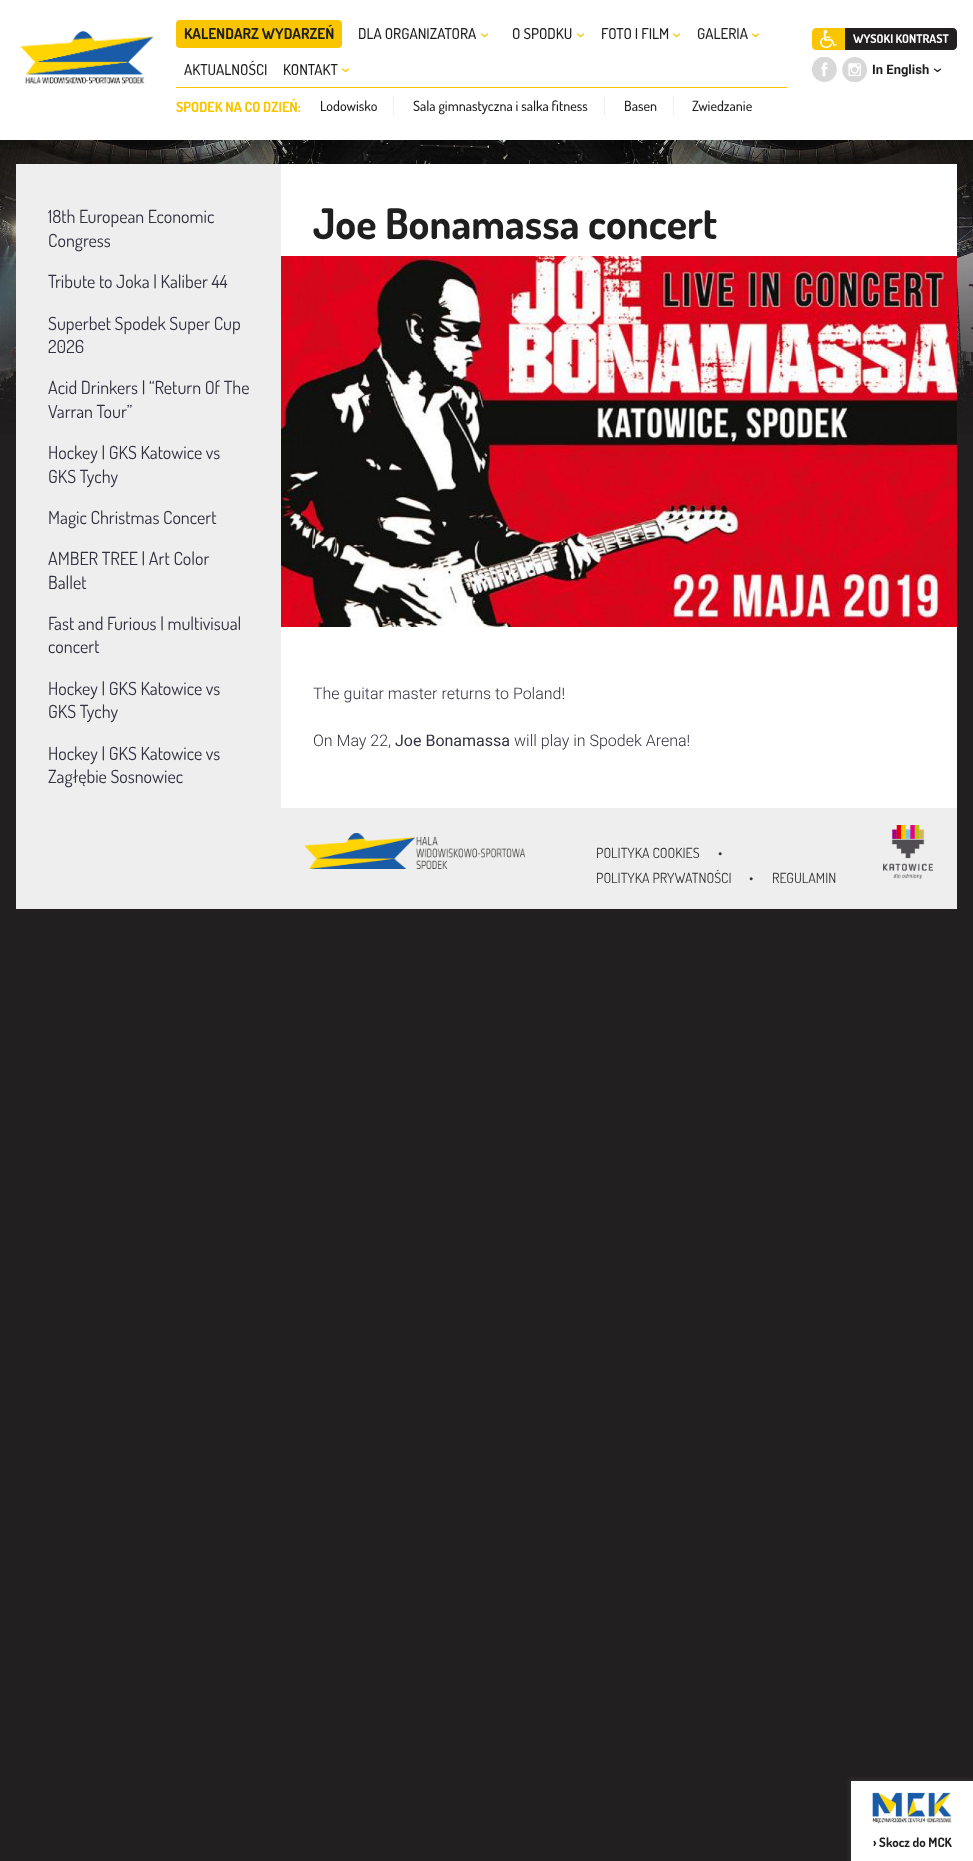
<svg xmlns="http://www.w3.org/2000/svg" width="973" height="1861">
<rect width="100%" height="100%" fill="#221f20"/>
<image x="0" y="140" width="973" height="294" href="media/1.png"/>
<rect width="973" height="140" fill="#fff"/>
<image x="20" y="30" width="134" height="55" href="media/2.png"/>
<rect x="176" y="20" width="166" height="28" rx="4" fill="#f9c500"/>
<text x="184" y="39" style="font-family:Dosis;font-size:15px;font-weight:bold;fill:#1f1f1f">KALENDARZ WYDARZEŃ</text>
<text x="358" y="39" style="font-family:Dosis;font-size:15px;font-weight:500;fill:#1f1f1f">DLA ORGANIZATORA</text>
<image x="480" y="33" width="9" height="5" href="media/3.png"/>
<text x="512" y="39" style="font-family:Dosis;font-size:15px;font-weight:500;fill:#1f1f1f">O SPODKU</text>
<image x="576" y="33" width="9" height="5" href="media/3.png"/>
<text x="601" y="39" style="font-family:Dosis;font-size:15px;font-weight:500;fill:#1f1f1f">FOTO I FILM</text>
<image x="672" y="33" width="9" height="5" href="media/3.png"/>
<text x="697" y="39" style="font-family:Dosis;font-size:15px;font-weight:500;fill:#1f1f1f">GALERIA</text>
<image x="751" y="33" width="9" height="5" href="media/3.png"/>
<text x="184" y="75" style="font-family:Dosis;font-size:15px;font-weight:500;fill:#1f1f1f">AKTUALNOŚCI</text>
<text x="283" y="75" style="font-family:Dosis;font-size:15px;font-weight:500;fill:#1f1f1f">KONTAKT</text>
<image x="341" y="68" width="9" height="5" href="media/3.png"/>
<rect x="176" y="87" width="611" height="1" fill="#f9c500"/>
<text x="176" y="112" style="font-family:Dosis;font-size:14px;font-weight:bold;fill:#f9c500">SPODEK NA CO DZIEŃ:</text>
<rect x="393" y="97" width="1" height="18" fill="#eee"/>
<text x="320" y="111" style="font-family:Dosis;font-size:14px;font-weight:500;fill:#1f1f1f">Lodowisko</text>
<rect x="604" y="97" width="1" height="18" fill="#eee"/>
<text x="413" y="111" style="font-family:Dosis;font-size:14px;font-weight:500;fill:#1f1f1f">Sala gimnastyczna i salka fitness</text>
<rect x="673" y="97" width="1" height="18" fill="#eee"/>
<text x="624" y="111" style="font-family:Dosis;font-size:14px;font-weight:500;fill:#1f1f1f">Basen</text>
<text x="692" y="111" style="font-family:Dosis;font-size:14px;font-weight:500;fill:#1f1f1f">Zwiedzanie</text>
<path d="M816 28h29v22h-29c-2 0-4-2-4-4v-14c0-2 2-4 4-4z" fill="#f9c500"/>
<image x="820" y="30" width="17" height="18" href="media/4.png"/>
<path d="M845 28h108c2 0 4 2 4 4v14c0 2-2 4-4 4h-108z" fill="#221f20"/>
<text x="853" y="43" style="font-family:Dosis;font-size:12px;font-weight:bold;fill:#fff">WYSOKI KONTRAST</text>
<image x="812" y="57" width="25" height="25" href="media/5.png"/>
<image x="842" y="57" width="25" height="25" href="media/6.png"/>
<image x="933" y="68" width="9" height="5" href="media/7.png"/>
<text x="872" y="74" style="font-family:Roboto;font-size:13px;font-weight:bold;fill:#1f1f1f">In English</text>
<rect x="16" y="164" width="941" height="745" fill="#eee"/>
<text x="48" y="223" style="font-family:Dosis;font-size:18px;fill:#31313f">18th European Economic</text>
<text x="48" y="247" style="font-family:Dosis;font-size:18px;fill:#31313f">Congress</text>
<text x="48" y="288" style="font-family:Dosis;font-size:18px;fill:#31313f">Tribute to Joka | Kaliber 44</text>
<text x="48" y="330" style="font-family:Dosis;font-size:18px;fill:#31313f">Superbet Spodek Super Cup</text>
<text x="48" y="353" style="font-family:Dosis;font-size:18px;fill:#31313f">2026</text>
<text x="48" y="394" style="font-family:Dosis;font-size:18px;fill:#31313f">Acid Drinkers | “Return Of The</text>
<text x="48" y="418" style="font-family:Dosis;font-size:18px;fill:#31313f">Varran Tour”</text>
<text x="48" y="459" style="font-family:Dosis;font-size:18px;fill:#31313f">Hockey | GKS Katowice vs</text>
<text x="48" y="483" style="font-family:Dosis;font-size:18px;fill:#31313f">GKS Tychy</text>
<text x="48" y="524" style="font-family:Dosis;font-size:18px;fill:#31313f">Magic Christmas Concert</text>
<text x="48" y="565" style="font-family:Dosis;font-size:18px;fill:#31313f">AMBER TREE | Art Color</text>
<text x="48" y="589" style="font-family:Dosis;font-size:18px;fill:#31313f">Ballet</text>
<text x="48" y="630" style="font-family:Dosis;font-size:18px;fill:#31313f">Fast and Furious | multivisual</text>
<text x="48" y="653" style="font-family:Dosis;font-size:18px;fill:#31313f">concert</text>
<text x="48" y="695" style="font-family:Dosis;font-size:18px;fill:#31313f">Hockey | GKS Katowice vs</text>
<text x="48" y="718" style="font-family:Dosis;font-size:18px;fill:#31313f">GKS Tychy</text>
<text x="48" y="760" style="font-family:Dosis;font-size:18px;fill:#31313f">Hockey | GKS Katowice vs</text>
<text x="48" y="783" style="font-family:Dosis;font-size:18px;fill:#31313f">Zagłębie Sosnowiec</text>
<rect x="281" y="164" width="676" height="644" fill="#fff"/>
<text x="313" y="239" style="font-family:Dosis;font-size:42px;font-weight:bold;fill:#1f1f1f">Joe Bonamassa concert</text>
<image x="281" y="256" width="676" height="371" href="media/8.png"/>
<text x="313" y="699" style="font-family:Roboto;font-size:16px;font-weight:300;fill:#31313f">The guitar master returns to Poland!</text>
<text x="313" y="746" style="font-family:Roboto;font-size:16px;font-weight:300;fill:#31313f">On May 22,</text>
<text x="395" y="746" style="font-family:Roboto;font-size:16px;fill:#31313f">Joe Bonamassa</text>
<text x="514" y="746" style="font-family:Roboto;font-size:16px;font-weight:300;fill:#31313f">will play in Spodek Arena!</text>
<image x="305" y="833" width="220" height="36" href="media/9.png"/>
<text x="596" y="858" style="font-family:Dosis;font-size:14px;fill:#333">POLITYKA COOKIES</text>
<text x="718" y="858" style="font-family:Dosis;font-size:14px;fill:#333">•</text>
<text x="596" y="883" style="font-family:Dosis;font-size:14px;fill:#333">POLITYKA PRYWATNOŚCI</text>
<text x="749" y="883" style="font-family:Dosis;font-size:14px;fill:#333">•</text>
<text x="772" y="883" style="font-family:Dosis;font-size:14px;fill:#333">REGULAMIN</text>
<image x="883" y="825" width="50" height="54" href="media/10.png"/>
<rect x="849" y="1779" width="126" height="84" fill="#353535cc" filter="blur(2px)"/>
<rect x="851" y="1781" width="122" height="80" fill="#fff"/>
<image x="872" y="1792" width="80" height="32" href="media/11.png"/>
<text x="873" y="1847" style="font-family:Dosis;font-size:13px;font-weight:bold;fill:#1f1f1f">› Skocz do MCK</text>
</svg>
